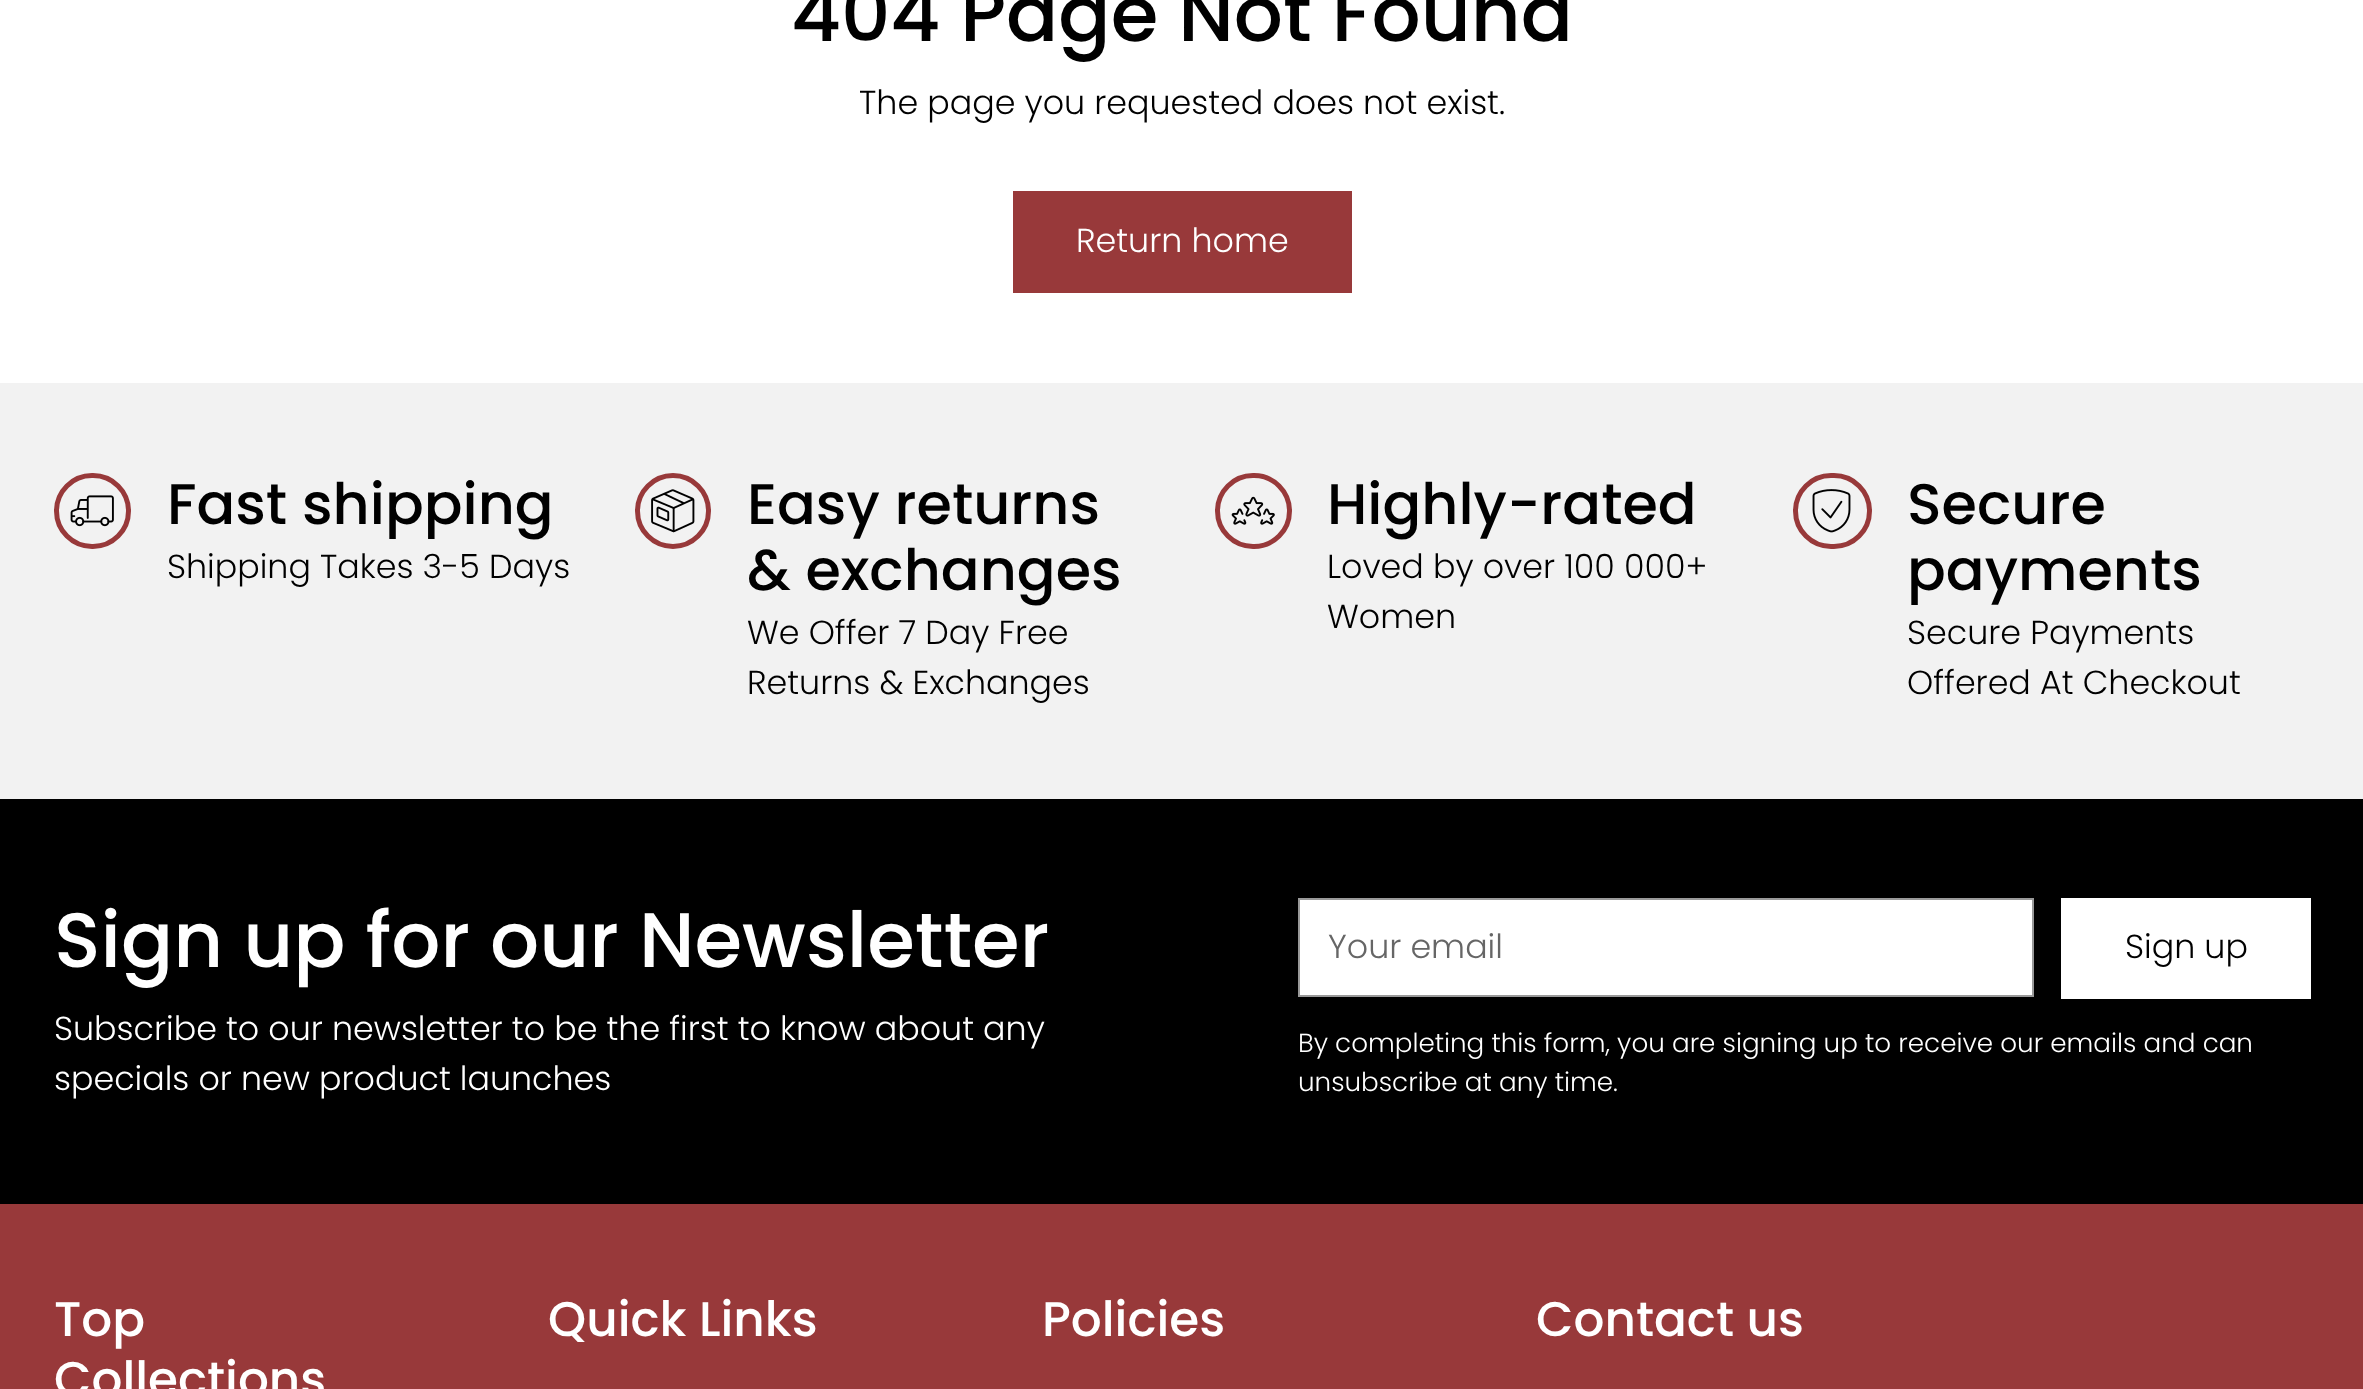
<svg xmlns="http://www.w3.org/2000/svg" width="2363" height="1389">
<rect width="100%" height="100%" fill="#fff"/>
<text x="791" y="41" style="font-family:Poppins;font-size:77.1px;font-weight:500;fill:#000">404 Page Not Found</text>
<text x="859" y="114" style="font-family:Poppins;font-size:33.3px;font-weight:300;fill:#000">The page you requested does not exist.</text>
<rect x="1013" y="191" width="339" height="102" fill="#98393a"/>
<text x="1076" y="252" style="font-family:Poppins;font-size:33.3px;font-weight:300;fill:#fff">Return home</text>
<rect y="383" width="2363" height="416" fill="#f2f2f2"/>
<rect x="56.5" y="475.5" width="72" height="71" rx="35.5" fill="none" stroke="#98393a" stroke-width="5"/>
<image x="70" y="495" width="44" height="32" href="media/1.png"/>
<text x="167" y="524" style="font-family:Poppins;font-size:57.25px;font-weight:500;fill:#000">Fast shipping</text>
<text x="167" y="578" style="font-family:Poppins;font-size:33.3px;font-weight:300;fill:#000">Shipping Takes 3-5 Days</text>
<circle cx="673" cy="511" r="35.5" fill="none" stroke="#98393a" stroke-width="5"/>
<image x="651" y="489" width="44" height="44" href="media/2.png"/>
<text x="747" y="524" style="font-family:Poppins;font-size:57.25px;font-weight:500;fill:#000">Easy returns</text>
<text x="747" y="590" style="font-family:Poppins;font-size:57.25px;font-weight:500;fill:#000">&amp; exchanges</text>
<text x="747" y="644" style="font-family:Poppins;font-size:33.3px;font-weight:300;fill:#000">We Offer 7 Day Free</text>
<text x="747" y="694" style="font-family:Poppins;font-size:33.3px;font-weight:300;fill:#000">Returns &amp; Exchanges</text>
<rect x="1217.5" y="475.5" width="72" height="71" rx="35.5" fill="none" stroke="#98393a" stroke-width="5"/>
<image x="1231" y="496" width="44" height="29" href="media/3.png"/>
<text x="1327" y="524" style="font-family:Poppins;font-size:57.25px;font-weight:500;fill:#000">Highly-rated</text>
<text x="1327" y="578" style="font-family:Poppins;font-size:33.3px;font-weight:300;fill:#000">Loved by over 100 000+</text>
<text x="1327" y="628" style="font-family:Poppins;font-size:33.3px;font-weight:300;fill:#000">Women</text>
<rect x="1795.5" y="475.5" width="74" height="71" rx="35.5" fill="none" stroke="#98393a" stroke-width="5"/>
<image x="1812" y="489" width="39" height="44" href="media/4.png"/>
<text x="1907" y="524" style="font-family:Poppins;font-size:57.25px;font-weight:500;fill:#000">Secure</text>
<text x="1907" y="590" style="font-family:Poppins;font-size:57.25px;font-weight:500;fill:#000">payments</text>
<text x="1907" y="644" style="font-family:Poppins;font-size:33.3px;font-weight:300;fill:#000">Secure Payments</text>
<text x="1907" y="694" style="font-family:Poppins;font-size:33.3px;font-weight:300;fill:#000">Offered At Checkout</text>
<rect y="799" width="2363" height="405" fill="#000"/>
<text x="54" y="967" style="font-family:Poppins;font-size:77.1px;font-weight:500;fill:#fff">Sign up for our Newsletter</text>
<text x="54" y="1040" style="font-family:Poppins;font-size:33.3px;font-weight:300;fill:#fff">Subscribe to our newsletter to be the first to know about any</text>
<text x="54" y="1090" style="font-family:Poppins;font-size:33.3px;font-weight:300;fill:#fff">specials or new product launches</text>
<rect x="1299" y="899" width="734" height="97" fill="#fff" stroke="#999" stroke-width="2"/>
<text x="1328" y="958" style="font-family:Poppins;font-size:33.3px;font-weight:300;fill:#666">Your email</text>
<rect x="2061" y="898" width="250" height="101" fill="#fff"/>
<text x="2125" y="958" style="font-family:Poppins;font-size:33.3px;font-weight:300;fill:#000">Sign up</text>
<text x="1298" y="1052" style="font-family:Poppins;font-size:26.2px;font-weight:300;fill:#fff">By completing this form, you are signing up to receive our emails and can</text>
<text x="1298" y="1091" style="font-family:Poppins;font-size:26.2px;font-weight:300;fill:#fff">unsubscribe at any time.</text>
<rect y="1204" width="2363" height="185" fill="#98393a"/>
<text x="54" y="1336" style="font-family:Poppins;font-size:48.5px;font-weight:500;fill:#fff">Top</text>
<text x="54" y="1396" style="font-family:Poppins;font-size:48.5px;font-weight:500;fill:#fff">Collections</text>
<text x="548" y="1336" style="font-family:Poppins;font-size:48.5px;font-weight:500;fill:#fff">Quick Links</text>
<text x="1042" y="1336" style="font-family:Poppins;font-size:48.5px;font-weight:500;fill:#fff">Policies</text>
<text x="1536" y="1336" style="font-family:Poppins;font-size:48.5px;font-weight:500;fill:#fff">Contact us</text>
</svg>
